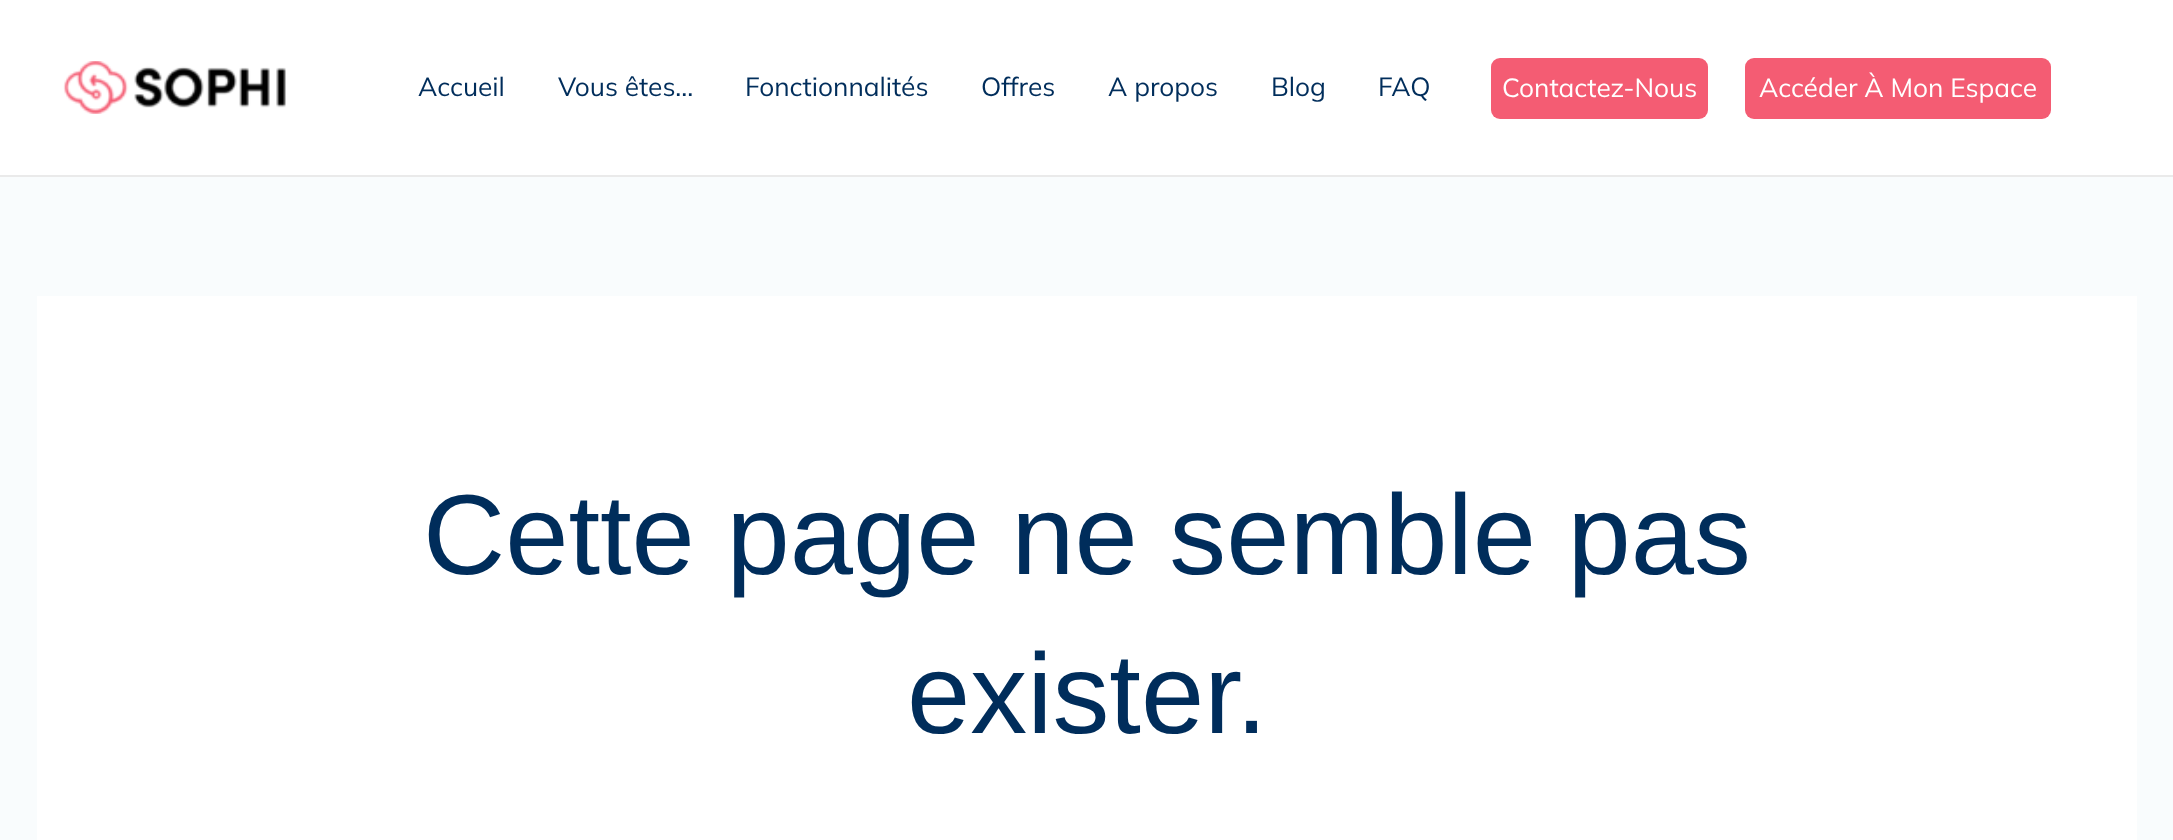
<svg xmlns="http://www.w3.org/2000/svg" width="2173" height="840">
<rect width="100%" height="100%" fill="#f9fcfd"/>
<rect width="2173" height="175" fill="#fff"/>
<rect y="175" width="2173" height="2" fill="#eaeaea"/>
<image x="63" y="61" width="223" height="53" href="media/1.png"/>
<text x="418" y="96" style="font-family:Mulish;font-size:26.25px;font-weight:200;fill:#002d5b">Accueil</text>
<text x="558" y="96" style="font-family:Mulish;font-size:26.25px;font-weight:200;fill:#002d5b">Vous êtes…</text>
<text x="745" y="96" style="font-family:Mulish;font-size:26.25px;font-weight:200;fill:#002d5b">Fonctionnalités</text>
<text x="981" y="96" style="font-family:Mulish;font-size:26.25px;font-weight:200;fill:#002d5b">Offres</text>
<text x="1108" y="96" style="font-family:Mulish;font-size:26.25px;font-weight:200;fill:#002d5b">A propos</text>
<text x="1271" y="96" style="font-family:Mulish;font-size:26.25px;font-weight:200;fill:#002d5b">Blog</text>
<text x="1378" y="96" style="font-family:Mulish;font-size:26.25px;font-weight:200;fill:#002d5b">FAQ</text>
<rect x="1491" y="58" width="217" height="61" rx="9" fill="#f45c73"/>
<text x="1502" y="97" style="font-family:Mulish;font-size:26.25px;font-weight:200;fill:#fff">Contactez-Nous</text>
<rect x="1745" y="58" width="306" height="61" rx="9" fill="#f45c73"/>
<text x="1759" y="97" style="font-family:Mulish;font-size:26.25px;font-weight:200;fill:#fff">Accéder À Mon Espace</text>
<rect x="37" y="296" width="2100" height="544" fill="#fff"/>
<text x="423" y="574" style="font-family:Liberation Sans;font-size:113.75px;fill:#002d5b">Cette page ne semble pas</text>
<text x="907" y="733" style="font-family:Liberation Sans;font-size:113.75px;fill:#002d5b">exister.</text>
</svg>
